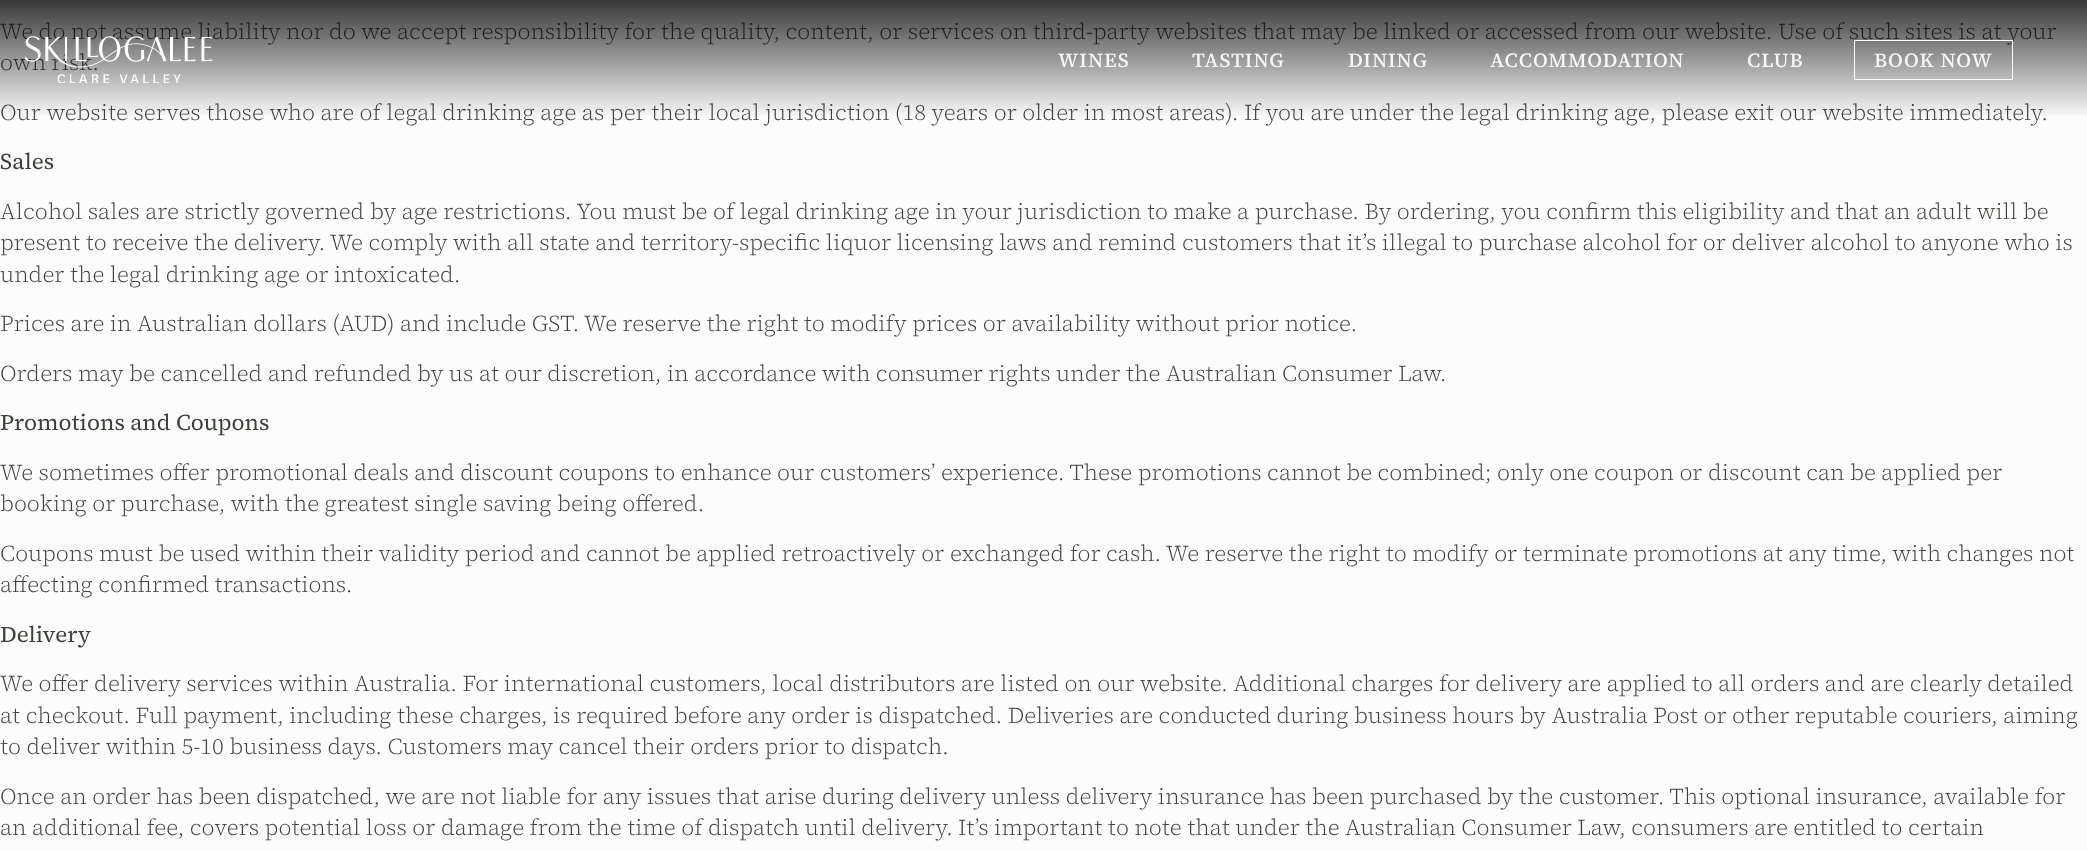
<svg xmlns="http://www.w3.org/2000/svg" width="2087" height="851">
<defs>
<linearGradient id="g1" gradientUnits="userSpaceOnUse" x1="1044" y1="0" x2="1044" y2="119"><stop offset="0" stop-color="#000" stop-opacity="0.78"/><stop offset="1" stop-color="#000" stop-opacity="0"/></linearGradient>
</defs>
<rect width="100%" height="100%" fill="#fcfcfc"/>
<text x="0" y="39" style="font-family:'Source Serif 4';font-size:22.5px;font-weight:300;fill:#3b4239">We do not assume liability nor do we accept responsibility for the quality, content, or services on third-party websites that may be linked or accessed from our website. Use of such sites is at your</text>
<text x="0" y="70" style="font-family:'Source Serif 4';font-size:22.5px;font-weight:300;fill:#3b4239">own risk.</text>
<text x="0" y="120" style="font-family:'Source Serif 4';font-size:22.5px;font-weight:300;fill:#3b4239">Our website serves those who are of legal drinking age as per their local jurisdiction (18 years or older in most areas). If you are under the legal drinking age, please exit our website immediately.</text>
<text x="0" y="169" style="font-family:'Source Serif 4';font-size:22.5px;fill:#3b4239">Sales</text>
<text x="0" y="219" style="font-family:'Source Serif 4';font-size:22.5px;font-weight:300;fill:#3b4239">Alcohol sales are strictly governed by age restrictions. You must be of legal drinking age in your jurisdiction to make a purchase. By ordering, you confirm this eligibility and that an adult will be</text>
<text x="0" y="250" style="font-family:'Source Serif 4';font-size:22.5px;font-weight:300;fill:#3b4239">present to receive the delivery. We comply with all state and territory-specific liquor licensing laws and remind customers that it’s illegal to purchase alcohol for or deliver alcohol to anyone who is</text>
<text x="0" y="282" style="font-family:'Source Serif 4';font-size:22.5px;font-weight:300;fill:#3b4239">under the legal drinking age or intoxicated.</text>
<text x="0" y="331" style="font-family:'Source Serif 4';font-size:22.5px;font-weight:300;fill:#3b4239">Prices are in Australian dollars (AUD) and include GST. We reserve the right to modify prices or availability without prior notice.</text>
<text x="0" y="381" style="font-family:'Source Serif 4';font-size:22.5px;font-weight:300;fill:#3b4239">Orders may be cancelled and refunded by us at our discretion, in accordance with consumer rights under the Australian Consumer Law.</text>
<text x="0" y="430" style="font-family:'Source Serif 4';font-size:22.5px;fill:#3b4239">Promotions and Coupons</text>
<text x="0" y="480" style="font-family:'Source Serif 4';font-size:22.5px;font-weight:300;fill:#3b4239">We sometimes offer promotional deals and discount coupons to enhance our customers’ experience. These promotions cannot be combined; only one coupon or discount can be applied per</text>
<text x="0" y="511" style="font-family:'Source Serif 4';font-size:22.5px;font-weight:300;fill:#3b4239">booking or purchase, with the greatest single saving being offered.</text>
<text x="0" y="561" style="font-family:'Source Serif 4';font-size:22.5px;font-weight:300;fill:#3b4239">Coupons must be used within their validity period and cannot be applied retroactively or exchanged for cash. We reserve the right to modify or terminate promotions at any time, with changes not</text>
<text x="0" y="592" style="font-family:'Source Serif 4';font-size:22.5px;font-weight:300;fill:#3b4239">affecting confirmed transactions.</text>
<text x="0" y="642" style="font-family:'Source Serif 4';font-size:22.5px;fill:#3b4239">Delivery</text>
<text x="0" y="691" style="font-family:'Source Serif 4';font-size:22.5px;font-weight:300;fill:#3b4239">We offer delivery services within Australia. For international customers, local distributors are listed on our website. Additional charges for delivery are applied to all orders and are clearly detailed</text>
<text x="0" y="723" style="font-family:'Source Serif 4';font-size:22.5px;font-weight:300;fill:#3b4239">at checkout. Full payment, including these charges, is required before any order is dispatched. Deliveries are conducted during business hours by Australia Post or other reputable couriers, aiming</text>
<text x="0" y="754" style="font-family:'Source Serif 4';font-size:22.5px;font-weight:300;fill:#3b4239">to deliver within 5-10 business days. Customers may cancel their orders prior to dispatch.</text>
<text x="0" y="804" style="font-family:'Source Serif 4';font-size:22.5px;font-weight:300;fill:#3b4239">Once an order has been dispatched, we are not liable for any issues that arise during delivery unless delivery insurance has been purchased by the customer. This optional insurance, available for</text>
<text x="0" y="835" style="font-family:'Source Serif 4';font-size:22.5px;font-weight:300;fill:#3b4239">an additional fee, covers potential loss or damage from the time of dispatch until delivery. It’s important to note that under the Australian Consumer Law, consumers are entitled to certain</text>
<rect width="2087" height="116" fill="url(#g1)"/>
<image x="25" y="36" width="188" height="47" href="media/1.png"/>
<text x="1058" y="67" style="font-family:'Source Serif 4';font-size:20px;font-weight:500;letter-spacing:1px;fill:#f7f7f7">WINES</text>
<text x="1192" y="67" style="font-family:'Source Serif 4';font-size:20px;font-weight:500;letter-spacing:1px;fill:#f7f7f7">TASTING</text>
<text x="1348" y="67" style="font-family:'Source Serif 4';font-size:20px;font-weight:500;letter-spacing:1px;fill:#f7f7f7">DINING</text>
<text x="1490" y="67" style="font-family:'Source Serif 4';font-size:20px;font-weight:500;letter-spacing:1px;fill:#f7f7f7">ACCOMMODATION</text>
<text x="1747" y="67" style="font-family:'Source Serif 4';font-size:20px;font-weight:500;letter-spacing:1px;fill:#f7f7f7">CLUB</text>
<rect x="1854.5" y="40.5" width="158" height="39" fill="none" stroke="#fcfcfc"/>
<text x="1874" y="67" style="font-family:'Source Serif 4';font-size:20px;font-weight:500;letter-spacing:1px;fill:#f7f7f7">BOOK NOW</text>
</svg>
